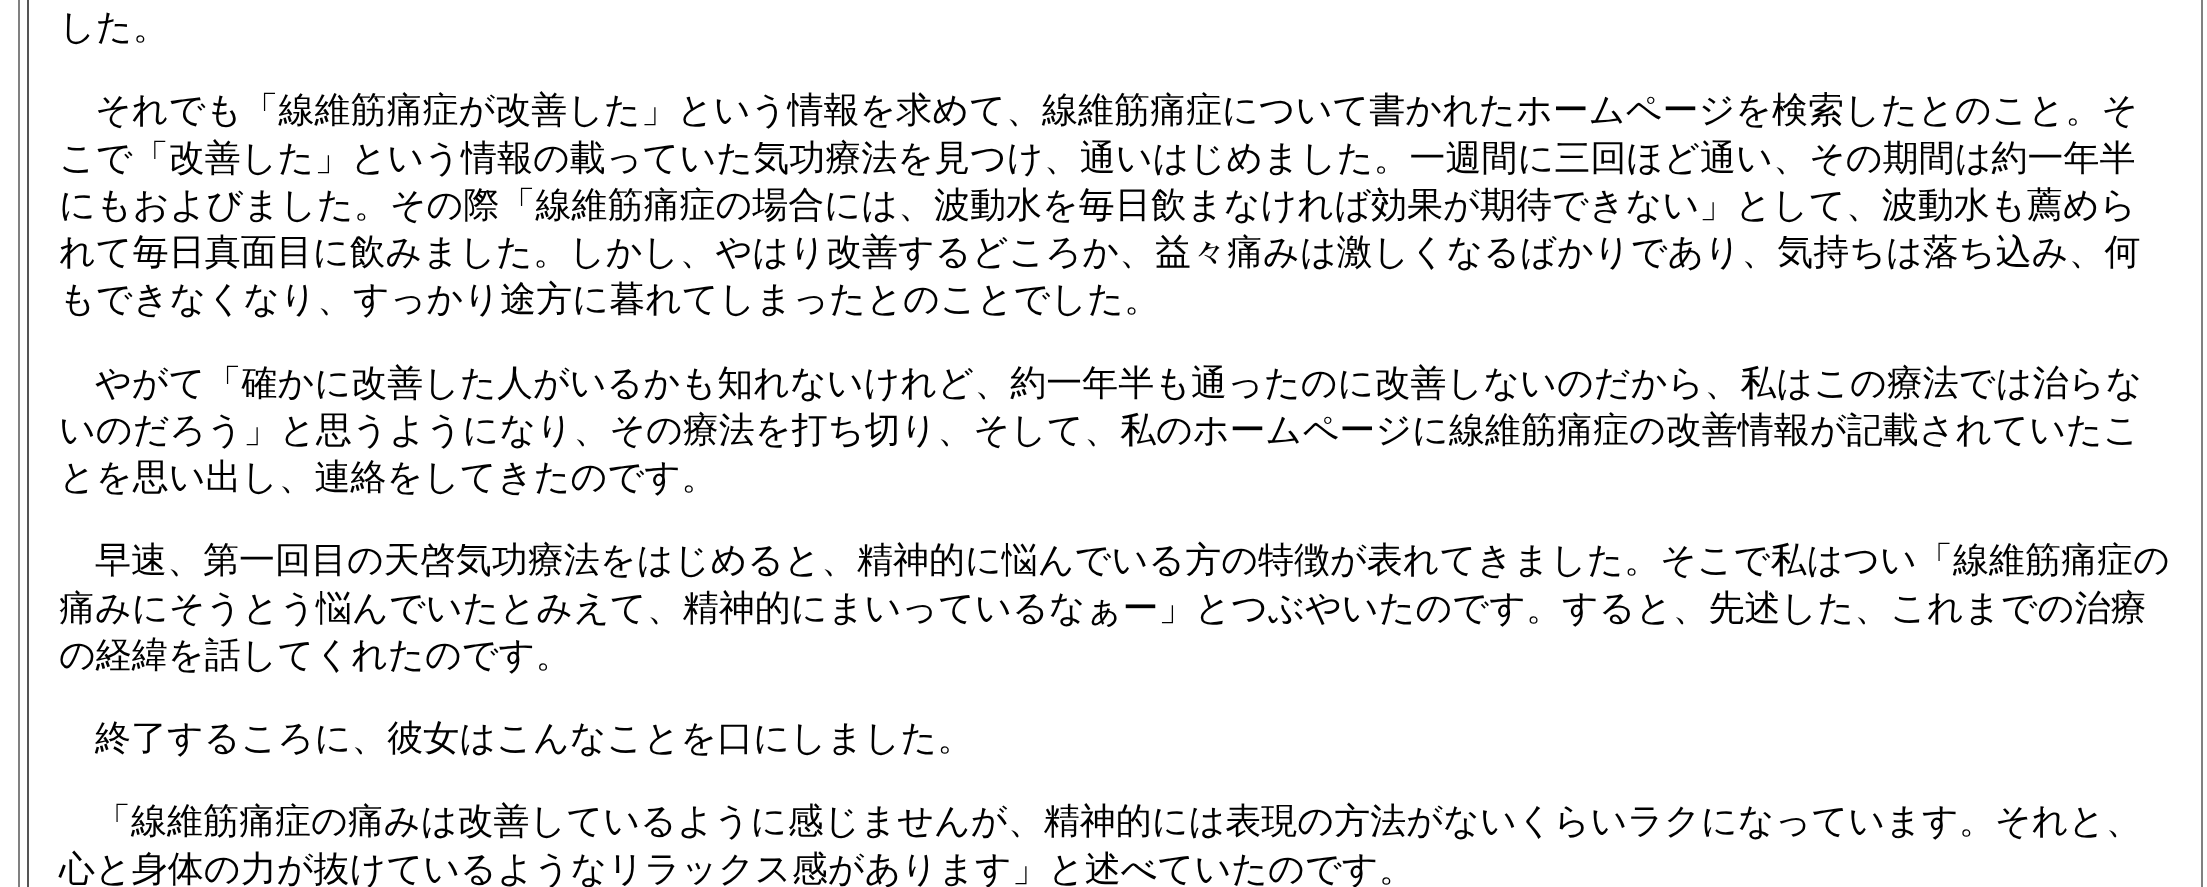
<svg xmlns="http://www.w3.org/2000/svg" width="2207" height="887">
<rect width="100%" height="100%" fill="#fff"/>
<rect x="18" width="2" height="887" fill="#808080"/>
<rect x="2201" width="2" height="887" fill="#808080"/>
<rect x="27" width="2" height="887" fill="#555"/>
<text x="59" y="39" style="font-family:WenQuanYi Zen Hei;font-size:36px;font-weight:500;fill:#000">した。</text>
<text x="95" y="122" style="font-family:WenQuanYi Zen Hei;font-size:36px;font-weight:500;fill:#000">それでも「線維筋痛症が改善した」という情報を求めて、線維筋痛症について書かれたホームページを検索したとのこと。そ</text>
<text x="59" y="170" style="font-family:WenQuanYi Zen Hei;font-size:36px;font-weight:500;fill:#000">こで「改善した」という情報の載っていた気功療法を見つけ、通いはじめました。一週間に三回ほど通い、その期間は約一年半</text>
<text x="59" y="217" style="font-family:WenQuanYi Zen Hei;font-size:36px;font-weight:500;fill:#000">にもおよびました。その際「線維筋痛症の場合には、波動水を毎日飲まなければ効果が期待できない」として、波動水も薦めら</text>
<text x="59" y="264" style="font-family:WenQuanYi Zen Hei;font-size:36px;font-weight:500;fill:#000">れて毎日真面目に飲みました。しかし、やはり改善するどころか、益々痛みは激しくなるばかりであり、気持ちは落ち込み、何</text>
<text x="59" y="311" style="font-family:WenQuanYi Zen Hei;font-size:36px;font-weight:500;fill:#000">もできなくなり、すっかり途方に暮れてしまったとのことでした。</text>
<text x="95" y="395" style="font-family:WenQuanYi Zen Hei;font-size:36px;font-weight:500;fill:#000">やがて「確かに改善した人がいるかも知れないけれど、約一年半も通ったのに改善しないのだから、私はこの療法では治らな</text>
<text x="59" y="442" style="font-family:WenQuanYi Zen Hei;font-size:36px;font-weight:500;fill:#000">いのだろう」と思うようになり、その療法を打ち切り、そして、私のホームページに線維筋痛症の改善情報が記載されていたこ</text>
<text x="59" y="489" style="font-family:WenQuanYi Zen Hei;font-size:36px;font-weight:500;fill:#000">とを思い出し、連絡をしてきたのです。</text>
<text x="95" y="572" style="font-family:WenQuanYi Zen Hei;font-size:36px;font-weight:500;fill:#000">早速、第一回目の天啓気功療法をはじめると、精神的に悩んでいる方の特徴が表れてきました。そこで私はつい「線維筋痛症の</text>
<text x="59" y="620" style="font-family:WenQuanYi Zen Hei;font-size:36px;font-weight:500;fill:#000">痛みにそうとう悩んでいたとみえて、精神的にまいっているなぁー」とつぶやいたのです。すると、先述した、これまでの治療</text>
<text x="59" y="667" style="font-family:WenQuanYi Zen Hei;font-size:36px;font-weight:500;fill:#000">の経緯を話してくれたのです。</text>
<text x="95" y="750" style="font-family:WenQuanYi Zen Hei;font-size:36px;font-weight:500;fill:#000">終了するころに、彼女はこんなことを口にしました。</text>
<text x="95" y="833" style="font-family:WenQuanYi Zen Hei;font-size:36px;font-weight:500;fill:#000">「線維筋痛症の痛みは改善しているように感じませんが、精神的には表現の方法がないくらいラクになっています。それと、</text>
<text x="59" y="881" style="font-family:WenQuanYi Zen Hei;font-size:36px;font-weight:500;fill:#000">心と身体の力が抜けているようなリラックス感があります」と述べていたのです。</text>
</svg>
